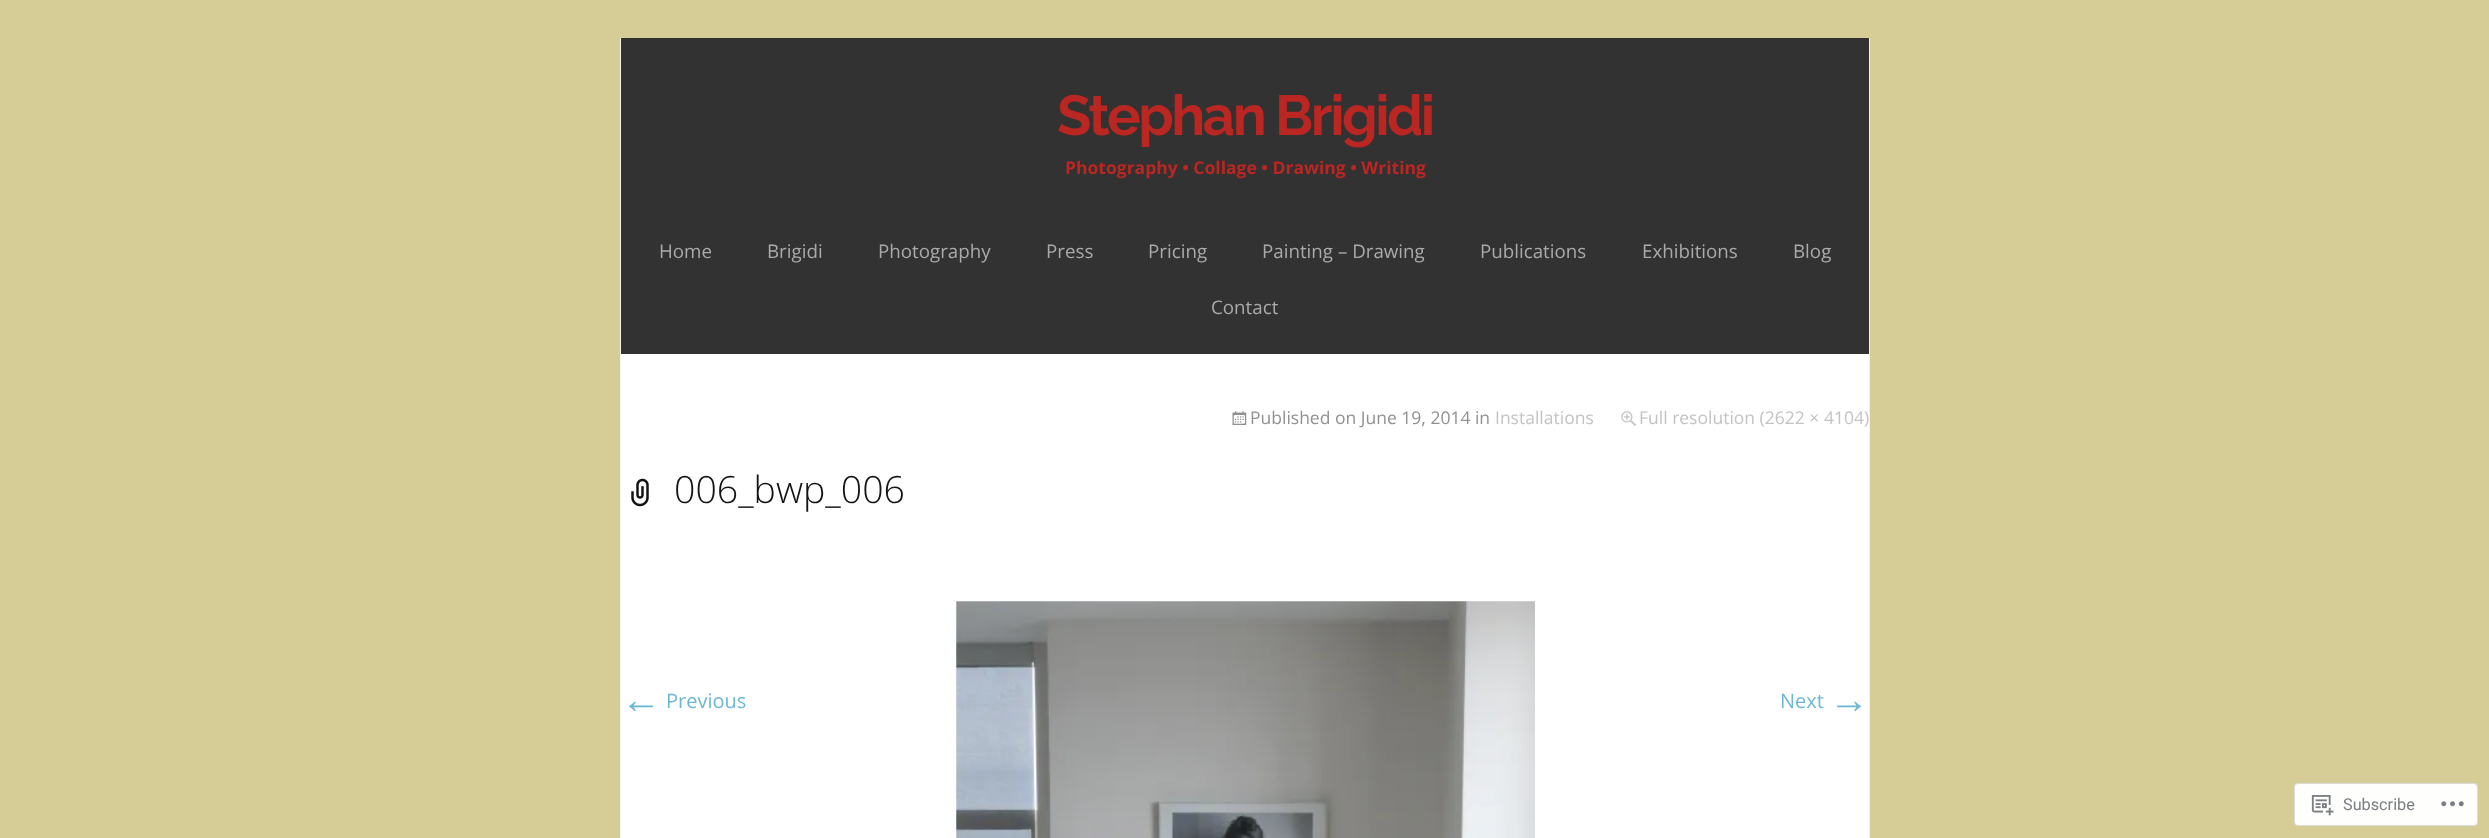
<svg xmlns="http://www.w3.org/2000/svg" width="2489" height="838">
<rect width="100%" height="100%" fill="#d6cc95"/>
<rect x="1869" y="38" width="1" height="800" fill="#f2f2f2"/>
<rect x="620" y="38" width="1" height="800" fill="#f2f2f2"/>
<rect x="621" y="38" width="1248" height="316" fill="#323232"/>
<text x="1057" y="135" style="font-family:Raleway;font-size:56.25px;font-weight:bold;letter-spacing:-2.5px;fill:#ba2621">Stephan Brigidi</text>
<text x="1065" y="174" style="font-family:Open Sans;font-size:17.5px;font-weight:bold;fill:#ba2621">Photography • Collage • Drawing • Writing</text>
<text x="659" y="258" style="font-family:Open Sans;font-size:18.75px;fill:#aaa">Home</text>
<text x="767" y="258" style="font-family:Open Sans;font-size:18.75px;fill:#aaa">Brigidi</text>
<text x="878" y="258" style="font-family:Open Sans;font-size:18.75px;fill:#aaa">Photography</text>
<text x="1046" y="258" style="font-family:Open Sans;font-size:18.75px;fill:#aaa">Press</text>
<text x="1148" y="258" style="font-family:Open Sans;font-size:18.75px;fill:#aaa">Pricing</text>
<text x="1262" y="258" style="font-family:Open Sans;font-size:18.75px;fill:#aaa">Painting – Drawing</text>
<text x="1480" y="258" style="font-family:Open Sans;font-size:18.75px;fill:#aaa">Publications</text>
<text x="1642" y="258" style="font-family:Open Sans;font-size:18.75px;fill:#aaa">Exhibitions</text>
<text x="1793" y="258" style="font-family:Open Sans;font-size:18.75px;fill:#aaa">Blog</text>
<text x="1211" y="314" style="font-family:Open Sans;font-size:18.75px;fill:#aaa">Contact</text>
<rect x="621" y="354" width="1248" height="484" fill="#fff"/>
<image x="1232" y="411" width="15" height="14" href="media/1.png"/>
<text x="1250" y="424" style="font-family:Open Sans;font-size:17.5px;fill:#919191">Published on June 19, 2014 in</text>
<text x="1495" y="424" style="font-family:Open Sans;font-size:17.5px;fill:#c3c3c3">Installations</text>
<image x="1621" y="411" width="15" height="15" href="media/2.png"/>
<text x="1639" y="424" style="font-family:Open Sans;font-size:17.5px;fill:#c3c3c3">Full resolution (2622 × 4104)</text>
<image x="631" y="478" width="18" height="29" href="media/3.png"/>
<text x="674" y="503" style="font-family:Open Sans;font-size:37.5px;font-weight:300;fill:#141414">006_bwp_006</text>
<image x="956" y="601" width="579" height="237" href="media/4.png"/>
<text x="621" y="713" style="font-family:Liberation Sans;font-size:40px;fill:#6cb7d3">←</text>
<text x="666" y="708" style="font-family:Open Sans;font-size:20px;fill:#6cb7d3">Previous</text>
<text x="1780" y="708" style="font-family:Open Sans;font-size:20px;fill:#6cb7d3">Next</text>
<text x="1829" y="713" style="font-family:Liberation Sans;font-size:40px;fill:#6cb7d3">→</text>
<rect x="2294.5" y="783.5" width="183" height="42" rx="3.5" fill="#fefefd" stroke="#dcdcdd"/>
<image x="2311" y="795" width="23" height="21" href="media/5.png"/>
<text x="2343" y="810" style="font-family:Roboto;font-size:16.25px;fill:#7a7e82">Subscribe</text>
<image x="2441" y="801" width="23" height="6" href="media/6.png"/>
</svg>
